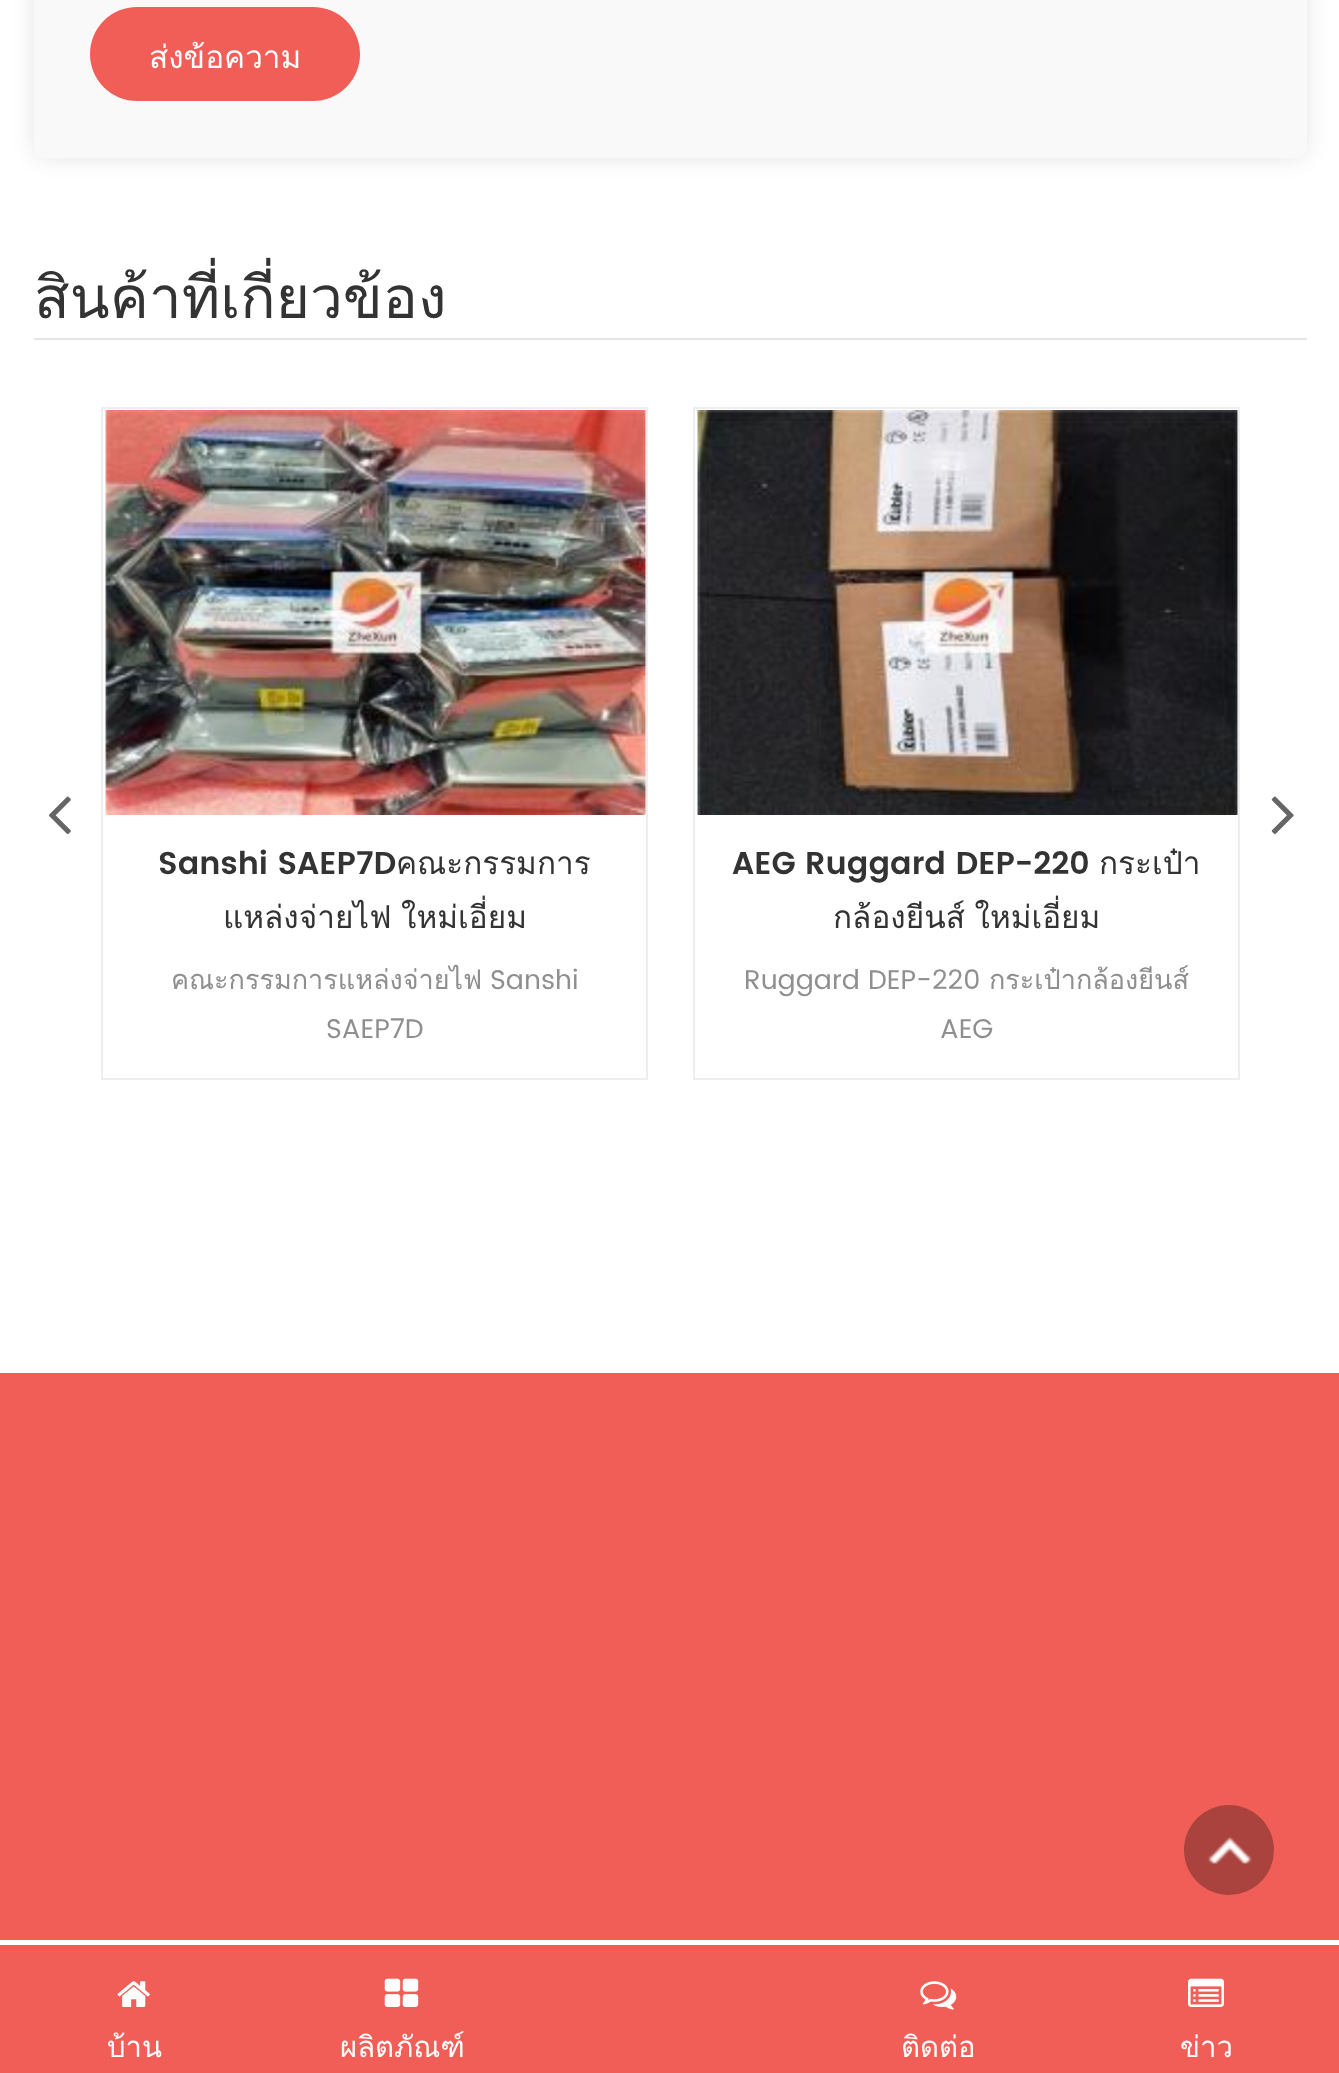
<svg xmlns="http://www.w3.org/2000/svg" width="1339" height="2073">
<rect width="100%" height="100%" fill="#fff"/>
<rect x="34" y="-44" width="1273" height="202" rx="11" fill="#0000001a" filter="blur(11px)"/>
<rect x="34" y="-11" width="1273" height="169" rx="11" fill="#f9f9f9"/>
<rect x="90" y="7" width="270" height="94" rx="47" fill="#f15e57"/>
<text x="149" y="68" style="font-family:Loma;font-size:31.5px;fill:#fff">ส่งข้อความ</text>
<rect x="34" y="338" width="1273" height="2" fill="#e5e5e5"/>
<text x="34" y="318" style="font-family:Loma;font-size:58.5px;fill:#333">สินค้าที่เกี่ยวข้อง</text>
<image x="49" y="796" width="22" height="39" href="media/1.png"/>
<image x="1271" y="796" width="23" height="39" href="media/2.png"/>
<rect x="102" y="408" width="545" height="671" fill="none" stroke="#eee" stroke-width="2"/>
<image x="105" y="410" width="542" height="405" href="media/3.png"/>
<text x="158" y="874" style="font-family:Poppins;font-size:31.5px;font-weight:600;fill:#333">Sanshi SAEP7D</text>
<text x="396" y="874" style="font-family:Loma;font-size:31.5px;fill:#333">คณะกรรมการ</text>
<text x="223" y="928" word-spacing="-1" style="font-family:Loma;font-size:31.5px;fill:#333">แหล่งจ่ายไฟ ใหม่เอี่ยม</text>
<text x="171" y="989" style="font-family:Loma;font-size:27px;fill:#8f8f8f">คณะกรรมการแหล่งจ่ายไฟ</text>
<text x="490" y="989" style="font-family:Poppins;font-size:27px;fill:#8f8f8f">Sanshi</text>
<text x="326" y="1038" style="font-family:Poppins;font-size:27px;fill:#8f8f8f">SAEP7D</text>
<rect x="694" y="408" width="545" height="671" fill="none" stroke="#eee" stroke-width="2"/>
<image x="697" y="410" width="541" height="405" href="media/4.png"/>
<text x="732" y="874" style="font-family:Poppins;font-size:31.5px;font-weight:600;fill:#333">AEG Ruggard DEP-220</text>
<text x="1099" y="874" style="font-family:Loma;font-size:31.5px;fill:#333">กระเป๋า</text>
<text x="833" y="928" word-spacing="-1" style="font-family:Loma;font-size:31.5px;fill:#333">กล้องยีนส์ ใหม่เอี่ยม</text>
<text x="744" y="989" style="font-family:Poppins;font-size:27px;fill:#8f8f8f">Ruggard DEP-220</text>
<text x="989" y="989" style="font-family:Loma;font-size:27px;fill:#8f8f8f">กระเป๋ากล้องยีนส์</text>
<text x="940" y="1038" style="font-family:Poppins;font-size:27px;fill:#8f8f8f">AEG</text>
<rect y="1373" width="1339" height="700" fill="#f15e57"/>
<circle cx="1229" cy="1850" r="45" fill="#aa423d"/>
<image x="1207" y="1837" width="45" height="28" href="media/5.png"/>
<rect y="1940" width="1339" height="5" fill="#fff"/>
<image x="117" y="1981" width="33" height="26" href="media/6.png"/>
<text x="107" y="2057" style="font-family:Loma;font-size:29.25px;fill:#fff">บ้าน</text>
<image x="384" y="1978" width="35" height="29" href="media/7.png"/>
<text x="340" y="2057" style="font-family:Loma;font-size:29.25px;fill:#fff">ผลิตภัณฑ์</text>
<image x="920" y="1981" width="37" height="29" href="media/8.png"/>
<text x="901" y="2057" style="font-family:Loma;font-size:29.25px;fill:#fff">ติดต่อ</text>
<image x="1188" y="1978" width="36" height="29" href="media/9.png"/>
<text x="1180" y="2057" style="font-family:Loma;font-size:29.25px;fill:#fff">ข่าว</text>
</svg>
